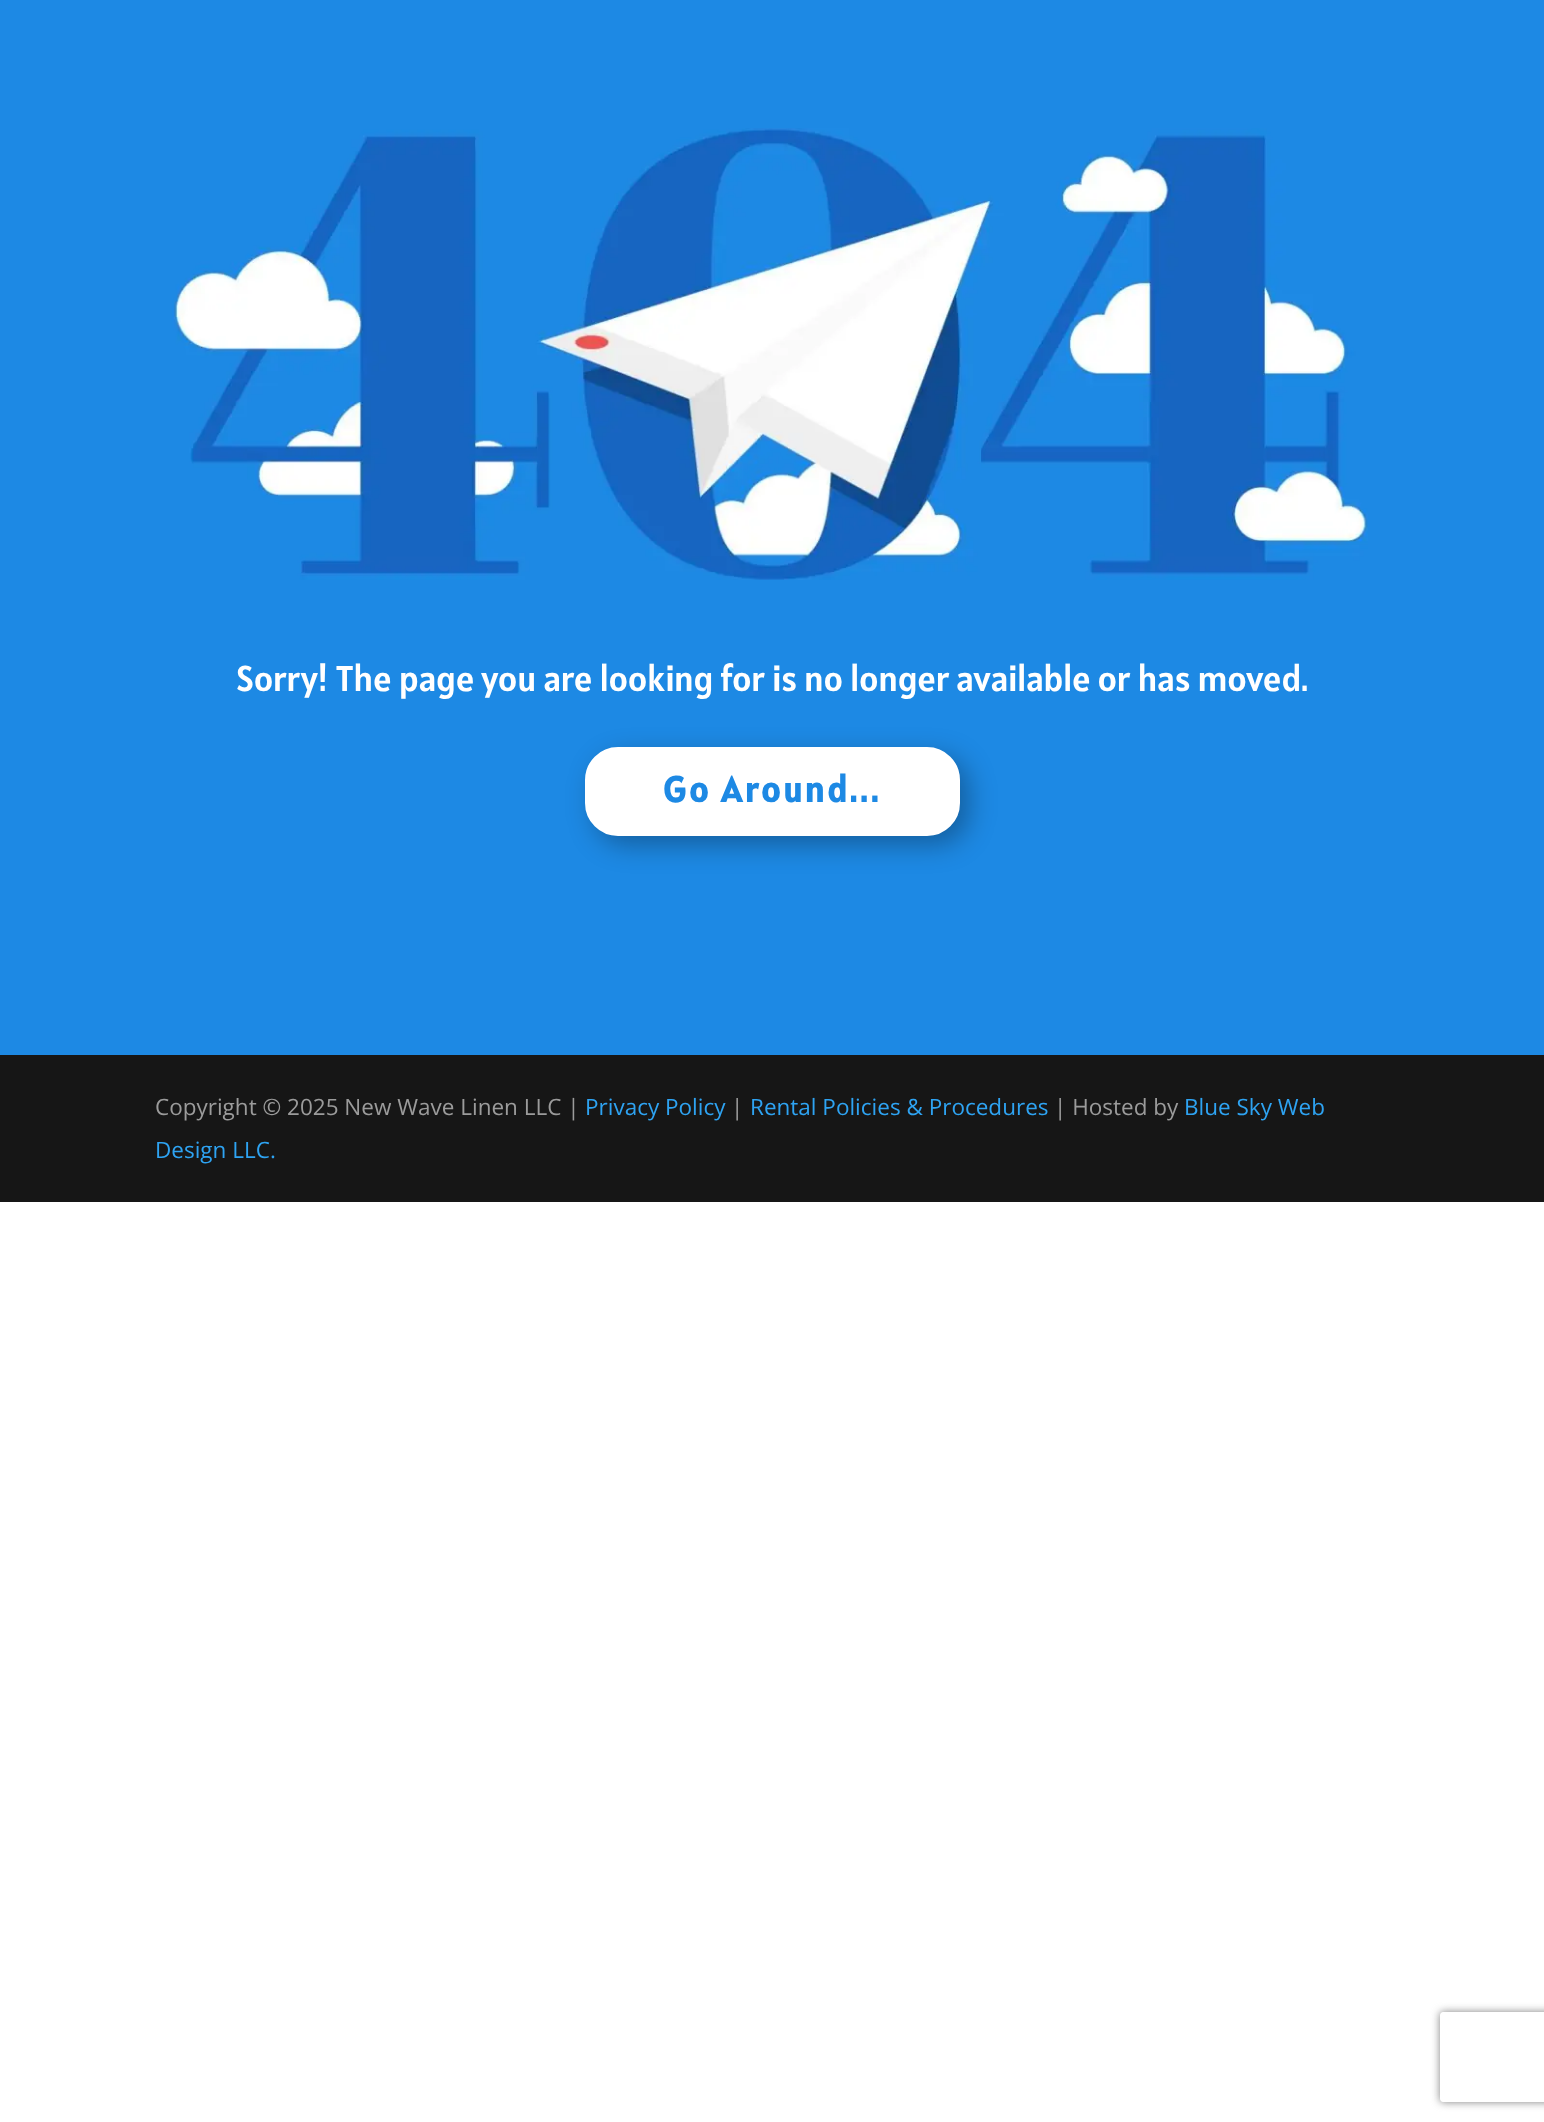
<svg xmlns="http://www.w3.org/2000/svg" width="1544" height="2122">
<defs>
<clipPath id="clip1"><path d="M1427 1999h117v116h-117zm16 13h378c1.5 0 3 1.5 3 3v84c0 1.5-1.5 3-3 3h-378c-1.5 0-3-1.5-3-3v-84c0-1.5 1.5-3 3-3z" clip-rule="evenodd"/></clipPath>
</defs>
<rect width="100%" height="100%" fill="#fff"/>
<rect width="1544" height="1055" fill="#1d89e4"/>
<image x="172" y="128" width="1196" height="452" href="media/1.png"/>
<text x="236" y="691" style="font-family:Alatsi;font-size:36px;fill:#fff">Sorry! The page you are looking for is no longer available or has moved.</text>
<rect x="594" y="756" width="375" height="89" rx="33" fill="#0000004d" filter="blur(13.5px)"/>
<rect x="586.5" y="748.5" width="372" height="86" rx="31.5" fill="#fff" stroke="#fff" stroke-width="3"/>
<text x="663" y="802" style="font-family:Alatsi;font-size:36px;font-weight:bold;letter-spacing:3px;fill:#1d89e4">Go Around...</text>
<rect y="1055" width="1544" height="147" fill="#161616"/>
<text x="155" y="1115" style="font-family:Open Sans;font-size:22.5px;fill:#9b9b9b">Copyright © 2025 New Wave Linen LLC |</text>
<text x="585" y="1115" style="font-family:Open Sans;font-size:22.5px;fill:#2ea3f2">Privacy Policy</text>
<text x="731" y="1115" style="font-family:Open Sans;font-size:22.5px;fill:#9b9b9b">|</text>
<text x="750" y="1115" style="font-family:Open Sans;font-size:22.5px;fill:#2ea3f2">Rental Policies &amp; Procedures</text>
<text x="1054" y="1115" style="font-family:Open Sans;font-size:22.5px;fill:#9b9b9b">| Hosted by</text>
<text x="1184" y="1115" style="font-family:Open Sans;font-size:22.5px;fill:#2ea3f2">Blue Sky Web</text>
<text x="155" y="1158" style="font-family:Open Sans;font-size:22.5px;fill:#2ea3f2">Design LLC.</text>
<g clip-path="url(#clip1)">
<rect x="1440" y="2012" width="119" height="90" rx="3" fill="#808080" filter="blur(4px)"/>
</g>
</svg>
